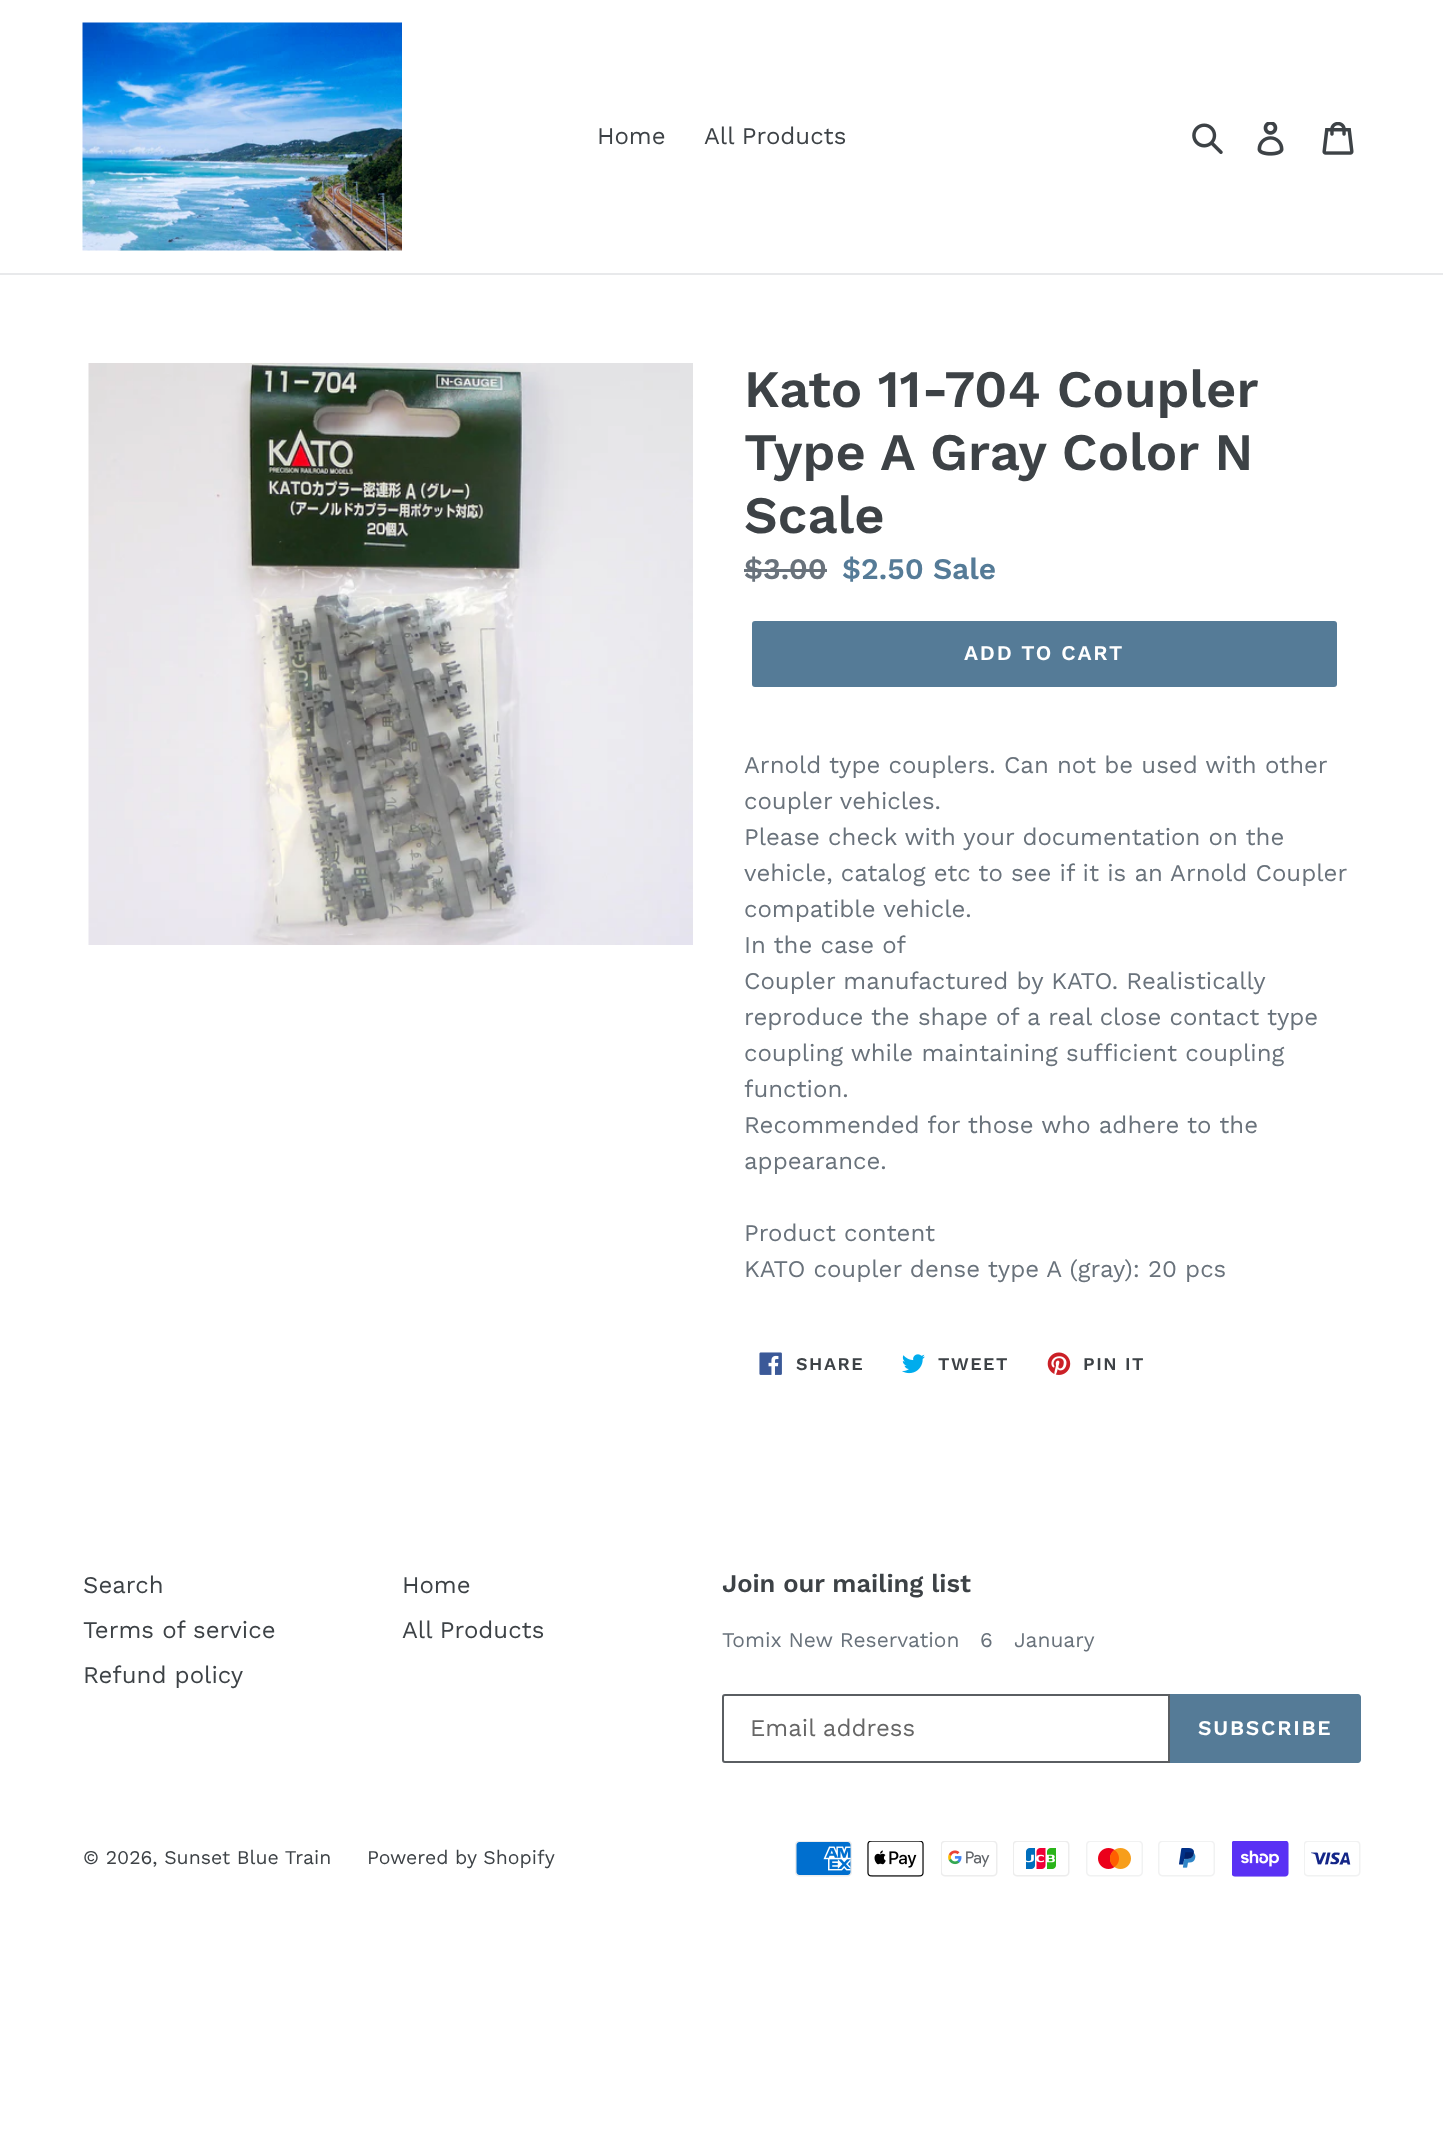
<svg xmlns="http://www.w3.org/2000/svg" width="1443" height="2155">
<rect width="100%" height="100%" fill="#fff"/>
<rect y="273" width="1443" height="2" fill="#e8e9eb"/>
<image x="82" y="22" width="320" height="229" href="media/1.png"/>
<text x="597" y="144" style="font-family:Work Sans;font-size:24px;fill:#3d4246">Home</text>
<text x="704" y="144" style="font-family:Work Sans;font-size:24px;fill:#3d4246">All Products</text>
<image x="1192" y="123" width="31" height="31" href="media/2.png"/>
<image x="1257" y="122" width="27" height="34" href="media/3.png"/>
<image x="1322" y="122" width="32" height="33" href="media/4.png"/>
<image x="88" y="363" width="605" height="582" href="media/5.png"/>
<text x="744" y="407" style="font-family:Work Sans;font-size:52.5px;font-weight:600;fill:#3d4246">Kato 11-704 Coupler</text>
<text x="744" y="470" style="font-family:Work Sans;font-size:52.5px;font-weight:600;fill:#3d4246">Type A Gray Color N</text>
<text x="744" y="533" style="font-family:Work Sans;font-size:52.5px;font-weight:600;fill:#3d4246">Scale</text>
<text x="744" y="579" style="font-family:Work Sans;font-size:30px;font-weight:600;fill:#69727b">$3.00</text>
<rect x="744" y="569" width="83" height="3" fill="#69727b"/>
<text x="842" y="579" style="font-family:Work Sans;font-size:30px;font-weight:600;fill:#557b97">$2.50 Sale</text>
<rect x="752" y="621" width="585" height="66" rx="3" fill="#557b97"/>
<text x="964" y="660" style="font-family:Work Sans;font-size:21px;font-weight:600;letter-spacing:1.75px;fill:#fff">ADD TO CART</text>
<text x="744" y="773" style="font-family:Work Sans;font-size:24px;fill:#69727b">Arnold type couplers. Can not be used with other</text>
<text x="744" y="809" style="font-family:Work Sans;font-size:24px;fill:#69727b">coupler vehicles.</text>
<text x="744" y="845" style="font-family:Work Sans;font-size:24px;fill:#69727b">Please check with your documentation on the</text>
<text x="744" y="881" style="font-family:Work Sans;font-size:24px;fill:#69727b">vehicle, catalog etc to see if it is an Arnold Coupler</text>
<text x="744" y="917" style="font-family:Work Sans;font-size:24px;fill:#69727b">compatible vehicle.</text>
<text x="744" y="953" style="font-family:Work Sans;font-size:24px;fill:#69727b">In the case of</text>
<text x="744" y="989" style="font-family:Work Sans;font-size:24px;fill:#69727b">Coupler manufactured by KATO. Realistically</text>
<text x="744" y="1025" style="font-family:Work Sans;font-size:24px;fill:#69727b">reproduce the shape of a real close contact type</text>
<text x="744" y="1061" style="font-family:Work Sans;font-size:24px;fill:#69727b">coupling while maintaining sufficient coupling</text>
<text x="744" y="1097" style="font-family:Work Sans;font-size:24px;fill:#69727b">function.</text>
<text x="744" y="1133" style="font-family:Work Sans;font-size:24px;fill:#69727b">Recommended for those who adhere to the</text>
<text x="744" y="1169" style="font-family:Work Sans;font-size:24px;fill:#69727b">appearance.</text>
<text x="744" y="1241" style="font-family:Work Sans;font-size:24px;fill:#69727b">Product content</text>
<text x="744" y="1277" style="font-family:Work Sans;font-size:24px;fill:#69727b">KATO coupler dense type A (gray): 20 pcs</text>
<image x="759" y="1352" width="23" height="23" href="media/6.png"/>
<text x="796" y="1370" style="font-family:Work Sans;font-size:18px;font-weight:600;letter-spacing:1.5px;fill:#3d4246">SHARE</text>
<image x="902" y="1354" width="23" height="20" href="media/7.png"/>
<text x="938" y="1370" style="font-family:Work Sans;font-size:18px;font-weight:600;letter-spacing:1.5px;fill:#3d4246">TWEET</text>
<image x="1047" y="1352" width="24" height="23" href="media/8.png"/>
<text x="1083" y="1370" style="font-family:Work Sans;font-size:18px;font-weight:600;letter-spacing:1.5px;fill:#3d4246">PIN IT</text>
<text x="83" y="1593" style="font-family:Work Sans;font-size:24px;fill:#3d4246">Search</text>
<text x="83" y="1638" style="font-family:Work Sans;font-size:24px;fill:#3d4246">Terms of service</text>
<text x="83" y="1683" style="font-family:Work Sans;font-size:24px;fill:#3d4246">Refund policy</text>
<text x="402" y="1593" style="font-family:Work Sans;font-size:24px;fill:#3d4246">Home</text>
<text x="402" y="1638" style="font-family:Work Sans;font-size:24px;fill:#3d4246">All Products</text>
<text x="722" y="1592" style="font-family:Work Sans;font-size:25.5px;font-weight:600;fill:#3d4246">Join our mailing list</text>
<text x="722" y="1647" style="font-family:Work Sans;font-size:21px;fill:#69727b">Tomix New Reservation</text>
<text x="980" y="1647" style="font-family:Work Sans;font-size:21px;fill:#69727b">6</text>
<text x="1014" y="1647" style="font-family:Work Sans;font-size:21px;fill:#69727b">January</text>
<path d="M725 1695h444v67h-444c-1 0-2-1-2-2v-63c0-1 1-2 2-2z" fill="none" stroke="#5a5e62" stroke-width="2"/>
<text x="750" y="1736" style="font-family:Work Sans;font-size:24px;fill:#666">Email address</text>
<path d="M1170 1694h188c1.5 0 3 1.5 3 3v63c0 1.5-1.5 3-3 3h-188z" fill="#557b97"/>
<text x="1198" y="1735" style="font-family:Work Sans;font-size:21px;font-weight:600;letter-spacing:1.75px;fill:#fff">SUBSCRIBE</text>
<text x="83" y="1864" style="font-family:Work Sans;font-size:19.5px;fill:#3d4246">© 2026, Sunset Blue Train</text>
<text x="367" y="1864" style="font-family:Work Sans;font-size:19.5px;fill:#3d4246">Powered by Shopify</text>
<image x="795" y="1841" width="57" height="36" href="media/9.png"/>
<image x="867" y="1841" width="57" height="36" href="media/10.png"/>
<image x="941" y="1841" width="57" height="36" href="media/11.png"/>
<image x="1013" y="1841" width="57" height="36" href="media/12.png"/>
<image x="1086" y="1841" width="57" height="36" href="media/13.png"/>
<image x="1158" y="1841" width="57" height="36" href="media/14.png"/>
<image x="1232" y="1841" width="57" height="36" href="media/15.png"/>
<image x="1304" y="1841" width="57" height="36" href="media/16.png"/>
</svg>
